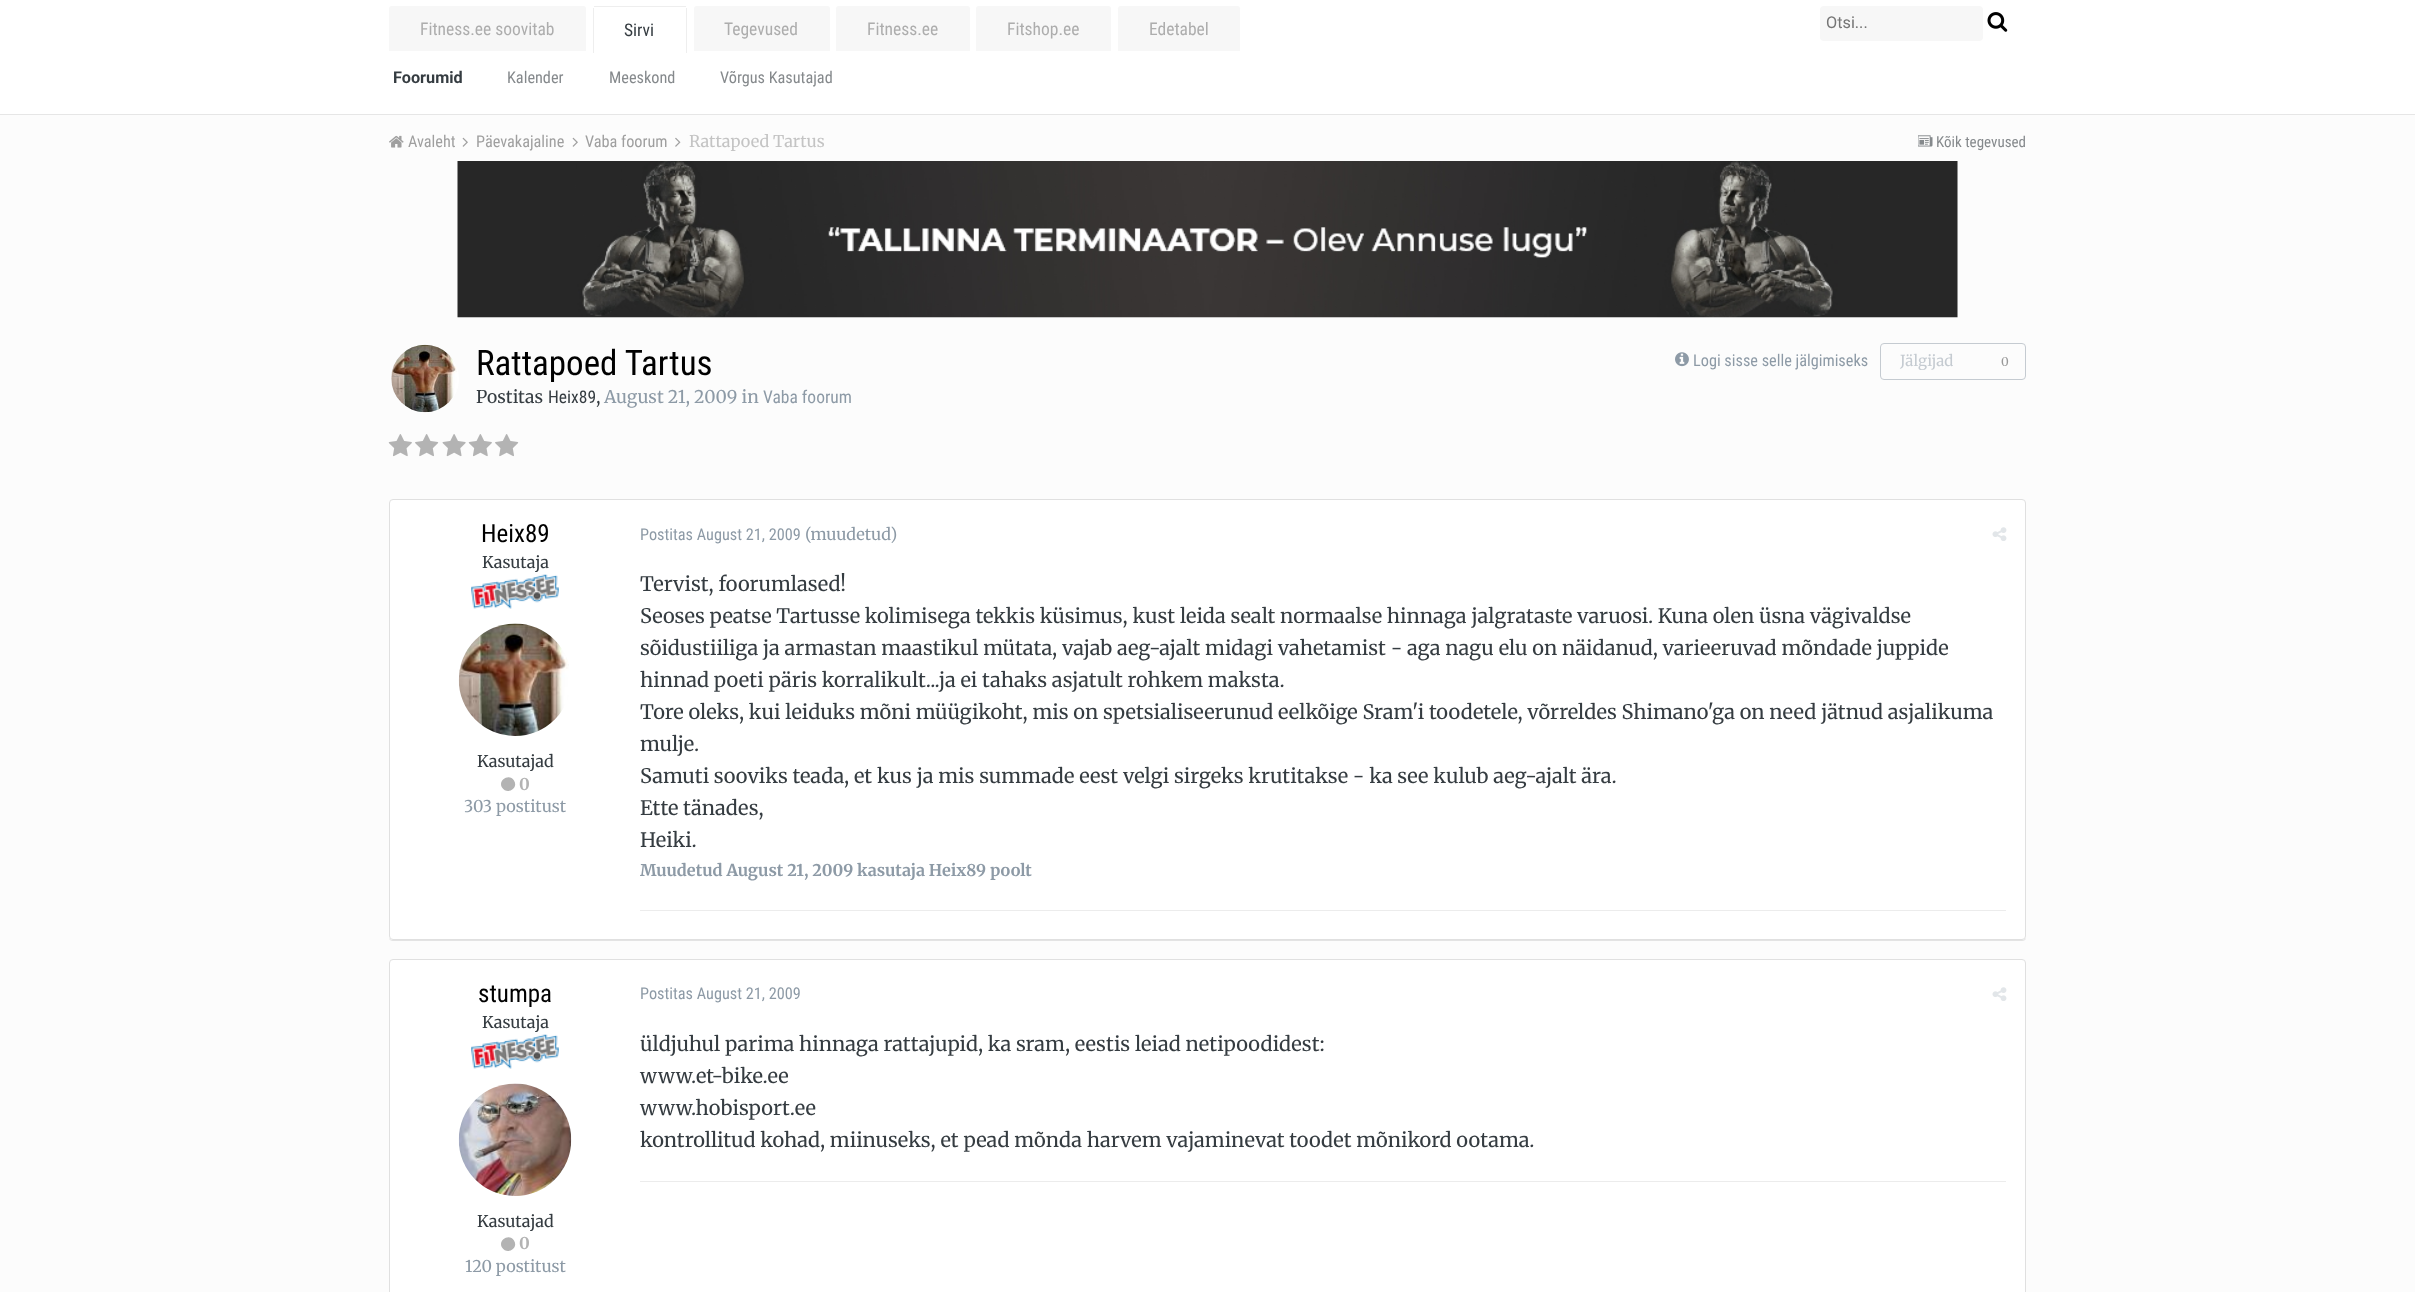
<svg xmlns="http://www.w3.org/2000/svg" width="2415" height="1292">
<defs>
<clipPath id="clip1"><rect x="689" y="134" width="136" height="19"/></clipPath>
</defs>
<rect width="100%" height="100%" fill="#fcfcfc"/>
<rect width="2415" height="114" fill="#fff"/>
<rect y="114" width="2415" height="1" fill="#e6e6e6"/>
<path d="M391.5 6h192c1.5 0 2.5 1 2.5 2.5v42.5h-197v-42.5c0-1.5 1-2.5 2.5-2.5z" fill="#f7f7f7"/>
<text x="420" y="35" style="font-family:Roboto Condensed;font-size:17.5px;fill:#adadad">Fitness.ee soovitab</text>
<path d="M696.5 6h131c1.5 0 2.5 1 2.5 2.5v42.5h-136v-42.5c0-1.5 1-2.5 2.5-2.5z" fill="#f7f7f7"/>
<text x="724" y="35" style="font-family:Roboto Condensed;font-size:17.5px;fill:#adadad">Tegevused</text>
<path d="M838.5 6h129c1.5 0 2.5 1 2.5 2.5v42.5h-134v-42.5c0-1.5 1-2.5 2.5-2.5z" fill="#f7f7f7"/>
<text x="867" y="35" style="font-family:Roboto Condensed;font-size:17.5px;fill:#adadad">Fitness.ee</text>
<path d="M978.5 6h130c1.5 0 2.5 1 2.5 2.5v42.5h-135v-42.5c0-1.5 1-2.5 2.5-2.5z" fill="#f7f7f7"/>
<text x="1007" y="35" style="font-family:Roboto Condensed;font-size:17.5px;fill:#adadad">Fitshop.ee</text>
<path d="M1120.5 6h117c1.5 0 2.5 1 2.5 2.5v42.5h-122v-42.5c0-1.5 1-2.5 2.5-2.5z" fill="#f7f7f7"/>
<text x="1149" y="35" style="font-family:Roboto Condensed;font-size:17.5px;fill:#adadad">Edetabel</text>
<rect x="594" y="6" width="92" height="1" fill="#eee"/>
<rect x="686" y="8" width="1" height="45" fill="#eee"/>
<rect x="593" y="8" width="1" height="45" fill="#eee"/>
<text x="624" y="36" style="font-family:Roboto Condensed;font-size:17.5px;fill:#353c41">Sirvi</text>
<text x="393" y="83" style="font-family:Roboto;font-size:16.25px;font-weight:bold;fill:#353c41">Foorumid</text>
<text x="507" y="83" style="font-family:Roboto Condensed;font-size:16.25px;fill:#85898c">Kalender</text>
<text x="609" y="83" style="font-family:Roboto Condensed;font-size:16.25px;fill:#85898c">Meeskond</text>
<text x="720" y="83" style="font-family:Roboto Condensed;font-size:16.25px;fill:#85898c">Võrgus Kasutajad</text>
<rect x="1820" y="6" width="163" height="35" rx="4" fill="#f7f7f7"/>
<text x="1826" y="28" style="font-family:Roboto;font-size:16.25px;fill:#757575">Otsi...</text>
<image x="1987" y="12" width="21" height="20" href="media/1.png"/>
<image x="389" y="135" width="15" height="13" href="media/2.png"/>
<text x="408" y="147" style="font-family:Roboto Condensed;font-size:16.25px;fill:#9f9f9f">Avaleht</text>
<image x="462" y="137" width="6" height="10" href="media/3.png"/>
<text x="476" y="147" style="font-family:Roboto Condensed;font-size:16.25px;fill:#9f9f9f">Päevakajaline</text>
<image x="572" y="137" width="6" height="10" href="media/3.png"/>
<text x="585" y="147" style="font-family:Roboto Condensed;font-size:16.25px;fill:#9f9f9f">Vaba foorum</text>
<image x="675" y="137" width="6" height="10" href="media/4.png"/>
<g clip-path="url(#clip1)">
<text x="689" y="147" style="font-family:Merriweather;font-size:16.25px;fill:#c4c4c4">Rattapoed Tartus</text>
</g>
<image x="1918" y="135" width="15" height="12" href="media/5.png"/>
<text x="1936" y="147" style="font-family:Roboto Condensed;font-size:15px;fill:#85898c">Kõik tegevused</text>
<rect x="458" y="161" width="1500" height="157" fill="#f8f8f8"/>
<image x="457" y="161" width="1501" height="157" href="media/6.png"/>
<circle cx="425" cy="379" r="34" fill="#fff"/>
<image x="391" y="344" width="66" height="69" href="media/7.png"/>
<text x="476" y="375" style="font-family:Roboto Condensed;font-size:35px;fill:#000">Rattapoed Tartus</text>
<text x="476" y="403" style="font-family:Merriweather;font-size:17.5px;fill:#353c41">Postitas</text>
<text x="548" y="403" style="font-family:Roboto Condensed;font-size:17.5px;fill:#353c41">Heix89</text>
<text x="596" y="403" style="font-family:Merriweather;font-size:17.5px;fill:#353c41">,</text>
<text x="604" y="403" style="font-family:Merriweather;font-size:17.5px;fill:#8d9aa6">August 21, 2009 in</text>
<text x="763" y="403" style="font-family:Roboto Condensed;font-size:17.5px;fill:#8d9aa6">Vaba foorum</text>
<image x="1675" y="352" width="14" height="15" href="media/8.png"/>
<text x="1693" y="366" style="font-family:Roboto Condensed;font-size:16.25px;fill:#8d9aa6">Logi sisse selle jälgimiseks</text>
<rect x="1880.5" y="343.5" width="145" height="36" rx="3.5" fill="none" stroke="#c5cbd1"/>
<text x="1900" y="366" style="font-family:Merriweather;font-size:15px;fill:#c5cbd1">Jälgijad</text>
<text x="2001" y="366" style="font-family:Merriweather;font-size:12px;fill:#989898">0</text>
<image x="388" y="434" width="24" height="23" href="media/9.png"/>
<image x="415" y="434" width="24" height="23" href="media/10.png"/>
<image x="442" y="434" width="24" height="23" href="media/11.png"/>
<image x="468" y="434" width="24" height="23" href="media/9.png"/>
<image x="495" y="434" width="24" height="23" href="media/10.png"/>
<path d="M389 938c0 2 2 3 4 3h1629c2 0 4-1 4-3c-1 1-2 2-4 2h-1630c-1 0-2-1-3-2z" fill="#e3e3e3"/>
<rect x="389.5" y="499.5" width="1636" height="440" rx="3.5" fill="#fff" stroke="#e0e0e0"/>
<text x="481" y="542" style="font-family:Roboto Condensed;font-size:25px;fill:#000">Heix89</text>
<text x="482" y="568" style="font-family:Merriweather;font-size:16.25px;fill:#353c41">Kasutaja</text>
<image x="471" y="574" width="88" height="35" href="media/12.png"/>
<image x="458" y="623" width="111" height="113" href="media/13.png"/>
<text x="477" y="767" style="font-family:Merriweather;font-size:16.25px;fill:#353c41">Kasutajad</text>
<path d="M514 780.5c5 8-7 15-12 7c-4.5-7.5 7.5-14.5 12-7z" fill="#b3b3b3"/>
<text x="519" y="790" style="font-family:Merriweather;font-size:16.25px;font-weight:bold;fill:#b3b3b3">0</text>
<text x="464" y="812" style="font-family:Merriweather;font-size:16.25px;fill:#8d9aa6">303 postitust</text>
<text x="640" y="540" style="font-family:Roboto Condensed;font-size:16.25px;fill:#8d9aa6">Postitas August 21, 2009</text>
<text x="805" y="540" style="font-family:Merriweather;font-size:16.25px;fill:#8d9aa6">(muudetud)</text>
<image x="1992" y="527" width="15" height="14" href="media/14.png"/>
<text x="640" y="591" style="font-family:Merriweather;font-size:20px;fill:#353c41">Tervist, foorumlased!</text>
<text x="640" y="623" style="font-family:Merriweather;font-size:20px;fill:#353c41">Seoses peatse Tartusse kolimisega tekkis küsimus, kust leida sealt normaalse hinnaga jalgrataste varuosi. Kuna olen üsna vägivaldse</text>
<text x="640" y="655" style="font-family:Merriweather;font-size:20px;fill:#353c41">sõidustiiliga ja armastan maastikul mütata, vajab aeg-ajalt midagi vahetamist - aga nagu elu on näidanud, varieeruvad mõndade juppide</text>
<text x="640" y="687" style="font-family:Merriweather;font-size:20px;fill:#353c41">hinnad poeti päris korralikult...ja ei tahaks asjatult rohkem maksta.</text>
<text x="640" y="719" style="font-family:Merriweather;font-size:20px;fill:#353c41">Tore oleks, kui leiduks mõni müügikoht, mis on spetsialiseerunud eelkõige Sram'i toodetele, võrreldes Shimano'ga on need jätnud asjalikuma</text>
<text x="640" y="751" style="font-family:Merriweather;font-size:20px;fill:#353c41">mulje.</text>
<text x="640" y="783" style="font-family:Merriweather;font-size:20px;fill:#353c41">Samuti sooviks teada, et kus ja mis summade eest velgi sirgeks krutitakse - ka see kulub aeg-ajalt ära.</text>
<text x="640" y="815" style="font-family:Merriweather;font-size:20px;fill:#353c41">Ette tänades,</text>
<text x="640" y="847" style="font-family:Merriweather;font-size:20px;fill:#353c41">Heiki.</text>
<text x="640" y="876" style="font-family:Merriweather;font-size:16.25px;font-weight:bold;fill:#8d9aa6">Muudetud August 21, 2009 kasutaja Heix89 poolt</text>
<rect x="640" y="910" width="1366" height="1" fill="#ececec"/>
<rect x="389.5" y="959.5" width="1636" height="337" rx="3.5" fill="#fff" stroke="#e0e0e0"/>
<text x="478" y="1002" style="font-family:Roboto Condensed;font-size:25px;fill:#000">stumpa</text>
<text x="482" y="1028" style="font-family:Merriweather;font-size:16.25px;fill:#353c41">Kasutaja</text>
<image x="471" y="1034" width="88" height="35" href="media/12.png"/>
<image x="458" y="1083" width="114" height="113" href="media/15.png"/>
<text x="477" y="1227" style="font-family:Merriweather;font-size:16.25px;fill:#353c41">Kasutajad</text>
<path d="M514 1240.5c5 8-7 15-12 7c-4.5-7.5 7.5-14.5 12-7z" fill="#b3b3b3"/>
<text x="519" y="1249" style="font-family:Merriweather;font-size:16.25px;font-weight:bold;fill:#b3b3b3">0</text>
<text x="465" y="1272" style="font-family:Merriweather;font-size:16.25px;fill:#8d9aa6">120 postitust</text>
<text x="640" y="999" style="font-family:Roboto Condensed;font-size:16.25px;fill:#8d9aa6">Postitas August 21, 2009</text>
<image x="1992" y="987" width="15" height="14" href="media/14.png"/>
<text x="640" y="1051" style="font-family:Merriweather;font-size:20px;fill:#353c41">üldjuhul parima hinnaga rattajupid, ka sram, eestis leiad netipoodidest:</text>
<text x="640" y="1083" style="font-family:Merriweather;font-size:20px;fill:#353c41">www.et-bike.ee</text>
<text x="640" y="1115" style="font-family:Merriweather;font-size:20px;fill:#353c41">www.hobisport.ee</text>
<text x="640" y="1147" style="font-family:Merriweather;font-size:20px;fill:#353c41">kontrollitud kohad, miinuseks, et pead mõnda harvem vajaminevat toodet mõnikord ootama.</text>
<rect x="640" y="1181" width="1366" height="1" fill="#ececec"/>
</svg>
